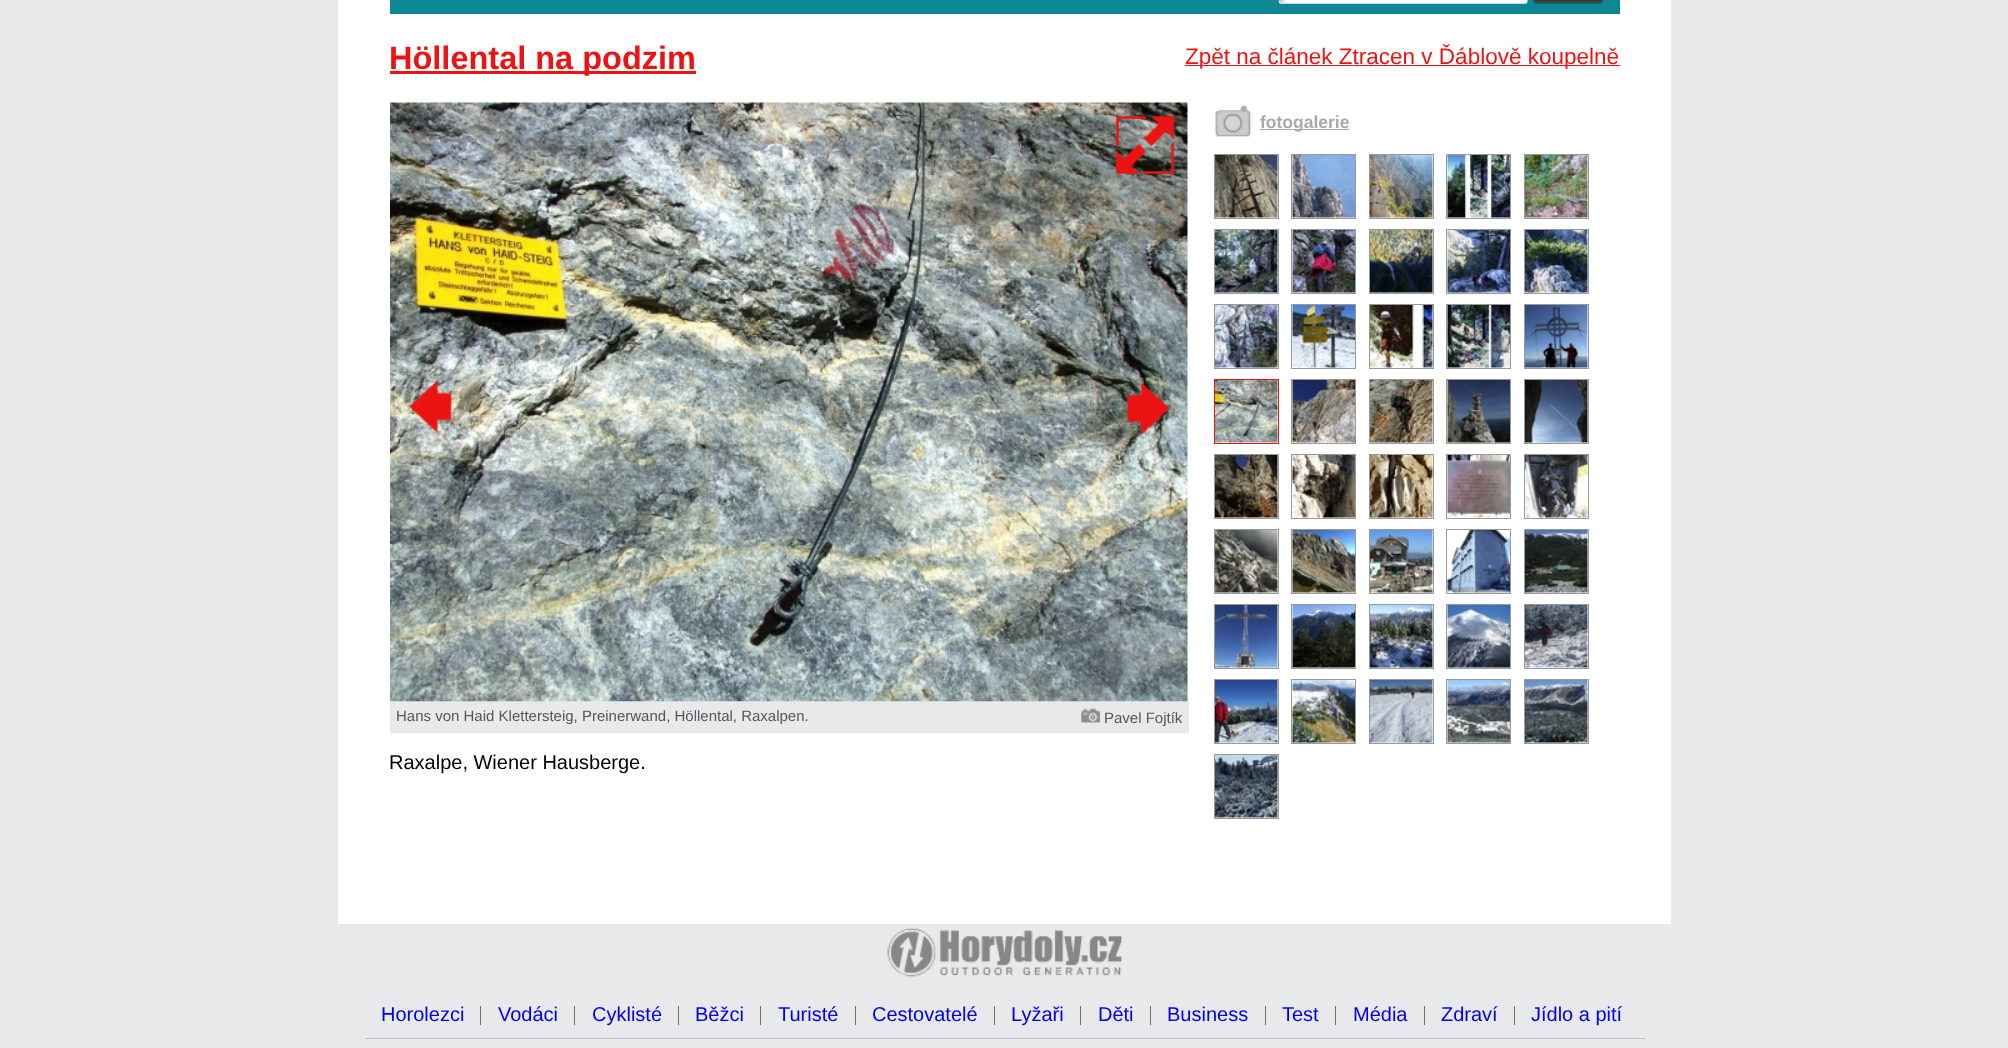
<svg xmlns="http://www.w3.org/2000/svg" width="2008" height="1048">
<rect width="100%" height="100%" fill="#e7e9ea"/>
<rect x="338" width="1333" height="924" fill="#fff"/>
<rect x="390" width="1230" height="14" fill="#0d8794"/>
<image x="1278" y="0" width="250" height="4" href="media/1.png"/>
<image x="1532" y="0" width="72" height="4" href="media/2.png"/>
<rect x="390" y="71" width="306" height="3" fill="#ec1313"/>
<text x="389" y="69" style="font-family:Liberation Sans;font-size:32.5px;font-weight:bold;fill:#ec1313">Höllental na podzim</text>
<rect x="1185" y="65" width="435" height="1" fill="#ec1313"/>
<text x="1185" y="64" style="font-family:Liberation Sans;font-size:22.5px;fill:#ec1313">Zpět na článek Ztracen v Ďáblově koupelně</text>
<image x="1215" y="105" width="37" height="32" href="media/3.png"/>
<rect x="1260" y="129" width="89" height="1" fill="#aaa"/>
<text x="1260" y="128" style="font-family:Liberation Sans;font-size:17.5px;font-weight:bold;fill:#aaa">fotogalerie</text>
<rect x="1214.5" y="154.5" width="64" height="64" fill="none" stroke="#999"/>
<image x="1215" y="155" width="63" height="63" href="media/4.png"/>
<rect x="1291.5" y="154.5" width="64" height="64" fill="none" stroke="#999"/>
<image x="1292" y="155" width="63" height="63" href="media/5.png"/>
<rect x="1369.5" y="154.5" width="64" height="64" fill="none" stroke="#999"/>
<image x="1370" y="155" width="63" height="63" href="media/6.png"/>
<rect x="1446.5" y="154.5" width="64" height="64" fill="none" stroke="#999"/>
<image x="1447" y="155" width="63" height="63" href="media/7.png"/>
<rect x="1524.5" y="154.5" width="64" height="64" fill="none" stroke="#999"/>
<image x="1525" y="155" width="63" height="63" href="media/8.png"/>
<rect x="1214.5" y="229.5" width="64" height="64" fill="none" stroke="#999"/>
<image x="1215" y="230" width="63" height="63" href="media/9.png"/>
<rect x="1291.5" y="229.5" width="64" height="64" fill="none" stroke="#999"/>
<image x="1292" y="230" width="63" height="63" href="media/10.png"/>
<rect x="1369.5" y="229.5" width="64" height="64" fill="none" stroke="#999"/>
<image x="1370" y="230" width="63" height="63" href="media/11.png"/>
<rect x="1446.5" y="229.5" width="64" height="64" fill="none" stroke="#999"/>
<image x="1447" y="230" width="63" height="63" href="media/12.png"/>
<rect x="1524.5" y="229.5" width="64" height="64" fill="none" stroke="#999"/>
<image x="1525" y="230" width="63" height="63" href="media/13.png"/>
<rect x="1214.5" y="304.5" width="64" height="64" fill="none" stroke="#999"/>
<image x="1215" y="305" width="63" height="63" href="media/14.png"/>
<rect x="1291.5" y="304.5" width="64" height="64" fill="none" stroke="#999"/>
<image x="1292" y="305" width="63" height="63" href="media/15.png"/>
<rect x="1369.5" y="304.5" width="64" height="64" fill="none" stroke="#999"/>
<image x="1370" y="305" width="63" height="63" href="media/16.png"/>
<rect x="1446.5" y="304.5" width="64" height="64" fill="none" stroke="#999"/>
<image x="1447" y="305" width="63" height="63" href="media/17.png"/>
<rect x="1524.5" y="304.5" width="64" height="64" fill="none" stroke="#999"/>
<image x="1525" y="305" width="63" height="63" href="media/18.png"/>
<rect x="1214.5" y="379.5" width="64" height="64" fill="none" stroke="#ec1313"/>
<image x="1215" y="380" width="63" height="63" href="media/19.png"/>
<rect x="1291.5" y="379.5" width="64" height="64" fill="none" stroke="#999"/>
<image x="1292" y="380" width="63" height="63" href="media/20.png"/>
<rect x="1369.5" y="379.5" width="64" height="64" fill="none" stroke="#999"/>
<image x="1370" y="380" width="63" height="63" href="media/21.png"/>
<rect x="1446.5" y="379.5" width="64" height="64" fill="none" stroke="#999"/>
<image x="1447" y="380" width="63" height="63" href="media/22.png"/>
<rect x="1524.5" y="379.5" width="64" height="64" fill="none" stroke="#999"/>
<image x="1525" y="380" width="63" height="63" href="media/23.png"/>
<rect x="1214.5" y="454.5" width="64" height="64" fill="none" stroke="#999"/>
<image x="1215" y="455" width="63" height="63" href="media/24.png"/>
<rect x="1291.5" y="454.5" width="64" height="64" fill="none" stroke="#999"/>
<image x="1292" y="455" width="63" height="63" href="media/25.png"/>
<rect x="1369.5" y="454.5" width="64" height="64" fill="none" stroke="#999"/>
<image x="1370" y="455" width="63" height="63" href="media/26.png"/>
<rect x="1446.5" y="454.5" width="64" height="64" fill="none" stroke="#999"/>
<image x="1447" y="455" width="63" height="63" href="media/27.png"/>
<rect x="1524.5" y="454.5" width="64" height="64" fill="none" stroke="#999"/>
<image x="1525" y="455" width="63" height="63" href="media/28.png"/>
<rect x="1214.5" y="529.5" width="64" height="64" fill="none" stroke="#999"/>
<image x="1215" y="530" width="63" height="63" href="media/29.png"/>
<rect x="1291.5" y="529.5" width="64" height="64" fill="none" stroke="#999"/>
<image x="1292" y="530" width="63" height="63" href="media/30.png"/>
<rect x="1369.5" y="529.5" width="64" height="64" fill="none" stroke="#999"/>
<image x="1370" y="530" width="63" height="63" href="media/31.png"/>
<rect x="1446.5" y="529.5" width="64" height="64" fill="none" stroke="#999"/>
<image x="1447" y="530" width="63" height="63" href="media/32.png"/>
<rect x="1524.5" y="529.5" width="64" height="64" fill="none" stroke="#999"/>
<image x="1525" y="530" width="63" height="63" href="media/33.png"/>
<rect x="1214.5" y="604.5" width="64" height="64" fill="none" stroke="#999"/>
<image x="1215" y="605" width="63" height="63" href="media/34.png"/>
<rect x="1291.5" y="604.5" width="64" height="64" fill="none" stroke="#999"/>
<image x="1292" y="605" width="63" height="63" href="media/35.png"/>
<rect x="1369.5" y="604.5" width="64" height="64" fill="none" stroke="#999"/>
<image x="1370" y="605" width="63" height="63" href="media/36.png"/>
<rect x="1446.5" y="604.5" width="64" height="64" fill="none" stroke="#999"/>
<image x="1447" y="605" width="63" height="63" href="media/37.png"/>
<rect x="1524.5" y="604.5" width="64" height="64" fill="none" stroke="#999"/>
<image x="1525" y="605" width="63" height="63" href="media/38.png"/>
<rect x="1214.5" y="679.5" width="64" height="64" fill="none" stroke="#999"/>
<image x="1215" y="680" width="63" height="63" href="media/39.png"/>
<rect x="1291.5" y="679.5" width="64" height="64" fill="none" stroke="#999"/>
<image x="1292" y="680" width="63" height="63" href="media/40.png"/>
<rect x="1369.5" y="679.5" width="64" height="64" fill="none" stroke="#999"/>
<image x="1370" y="680" width="63" height="63" href="media/41.png"/>
<rect x="1446.5" y="679.5" width="64" height="64" fill="none" stroke="#999"/>
<image x="1447" y="680" width="63" height="63" href="media/42.png"/>
<rect x="1524.5" y="679.5" width="64" height="64" fill="none" stroke="#999"/>
<image x="1525" y="680" width="63" height="63" href="media/43.png"/>
<rect x="1214.5" y="754.5" width="64" height="64" fill="none" stroke="#999"/>
<image x="1215" y="755" width="63" height="63" href="media/44.png"/>
<rect x="390" y="701" width="799" height="32" fill="#e8e9eb"/>
<image x="390" y="102" width="798" height="600" href="media/45.png"/>
<image x="1116" y="116" width="59" height="58" href="media/46.png"/>
<image x="408" y="380" width="44" height="53" href="media/47.png"/>
<image x="1127" y="382" width="43" height="53" href="media/48.png"/>
<text x="396" y="721" style="font-family:Liberation Sans;font-size:15px;fill:#555658">Hans von Haid Klettersteig, Preinerwand, Höllental, Raxalpen.</text>
<image x="1081" y="708" width="19" height="15" href="media/49.png"/>
<text x="1104" y="723" style="font-family:Liberation Sans;font-size:15px;fill:#555658">Pavel Fojtík</text>
<text x="389" y="769" style="font-family:Liberation Sans;font-size:20px;fill:#000">Raxalpe, Wiener Hausberge.</text>
<image x="887" y="928" width="235" height="49" href="media/50.png"/>
<rect x="480" y="1006" width="1" height="19" fill="#6e6e6e"/>
<text x="381" y="1021" style="font-family:Liberation Sans;font-size:20px;fill:#00e">Horolezci</text>
<rect x="574" y="1006" width="1" height="19" fill="#6e6e6e"/>
<text x="498" y="1021" style="font-family:Liberation Sans;font-size:20px;fill:#00e">Vodáci</text>
<rect x="678" y="1006" width="1" height="19" fill="#6e6e6e"/>
<text x="592" y="1021" style="font-family:Liberation Sans;font-size:20px;fill:#00e">Cyklisté</text>
<rect x="760" y="1006" width="1" height="19" fill="#6e6e6e"/>
<text x="695" y="1021" style="font-family:Liberation Sans;font-size:20px;fill:#00e">Běžci</text>
<rect x="855" y="1006" width="1" height="19" fill="#6e6e6e"/>
<text x="778" y="1021" style="font-family:Liberation Sans;font-size:20px;fill:#00e">Turisté</text>
<rect x="994" y="1006" width="1" height="19" fill="#6e6e6e"/>
<text x="872" y="1021" style="font-family:Liberation Sans;font-size:20px;fill:#00e">Cestovatelé</text>
<rect x="1080" y="1006" width="1" height="19" fill="#6e6e6e"/>
<text x="1011" y="1021" style="font-family:Liberation Sans;font-size:20px;fill:#00e">Lyžaři</text>
<rect x="1150" y="1006" width="1" height="19" fill="#6e6e6e"/>
<text x="1098" y="1021" style="font-family:Liberation Sans;font-size:20px;fill:#00e">Děti</text>
<rect x="1265" y="1006" width="1" height="19" fill="#6e6e6e"/>
<text x="1167" y="1021" style="font-family:Liberation Sans;font-size:20px;fill:#00e">Business</text>
<rect x="1335" y="1006" width="1" height="19" fill="#6e6e6e"/>
<text x="1282" y="1021" style="font-family:Liberation Sans;font-size:20px;fill:#00e">Test</text>
<rect x="1424" y="1006" width="1" height="19" fill="#6e6e6e"/>
<text x="1353" y="1021" style="font-family:Liberation Sans;font-size:20px;fill:#00e">Média</text>
<rect x="1514" y="1006" width="1" height="19" fill="#6e6e6e"/>
<text x="1441" y="1021" style="font-family:Liberation Sans;font-size:20px;fill:#00e">Zdraví</text>
<text x="1531" y="1021" style="font-family:Liberation Sans;font-size:20px;fill:#00e">Jídlo a pití</text>
<rect x="365" y="1038" width="1280" height="1" fill="#bdc0c2"/>
</svg>
